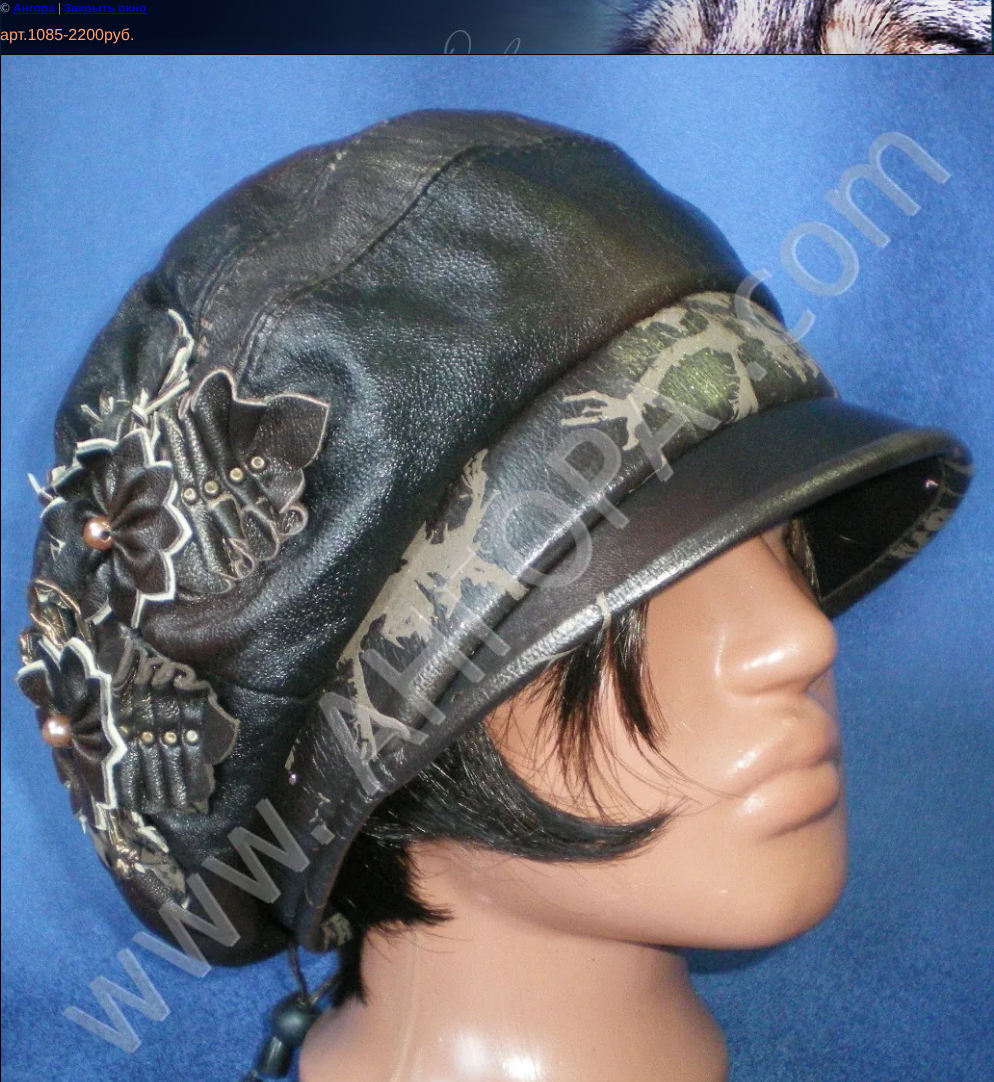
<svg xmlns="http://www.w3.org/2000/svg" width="994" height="1082">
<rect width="100%" height="100%" fill="#fff"/>
<image x="0" y="0" width="994" height="54" href="media/1.png"/>
<text x="0" y="12" style="font-family:Liberation Serif;font-size:13px;fill:#c4c2c2">©</text>
<rect x="13" y="13" width="42" height="1" fill="#00c"/>
<text x="13" y="12" style="font-family:Liberation Sans;font-size:12px;font-weight:bold;fill:#00c">Ангора</text>
<text x="58" y="12" style="font-family:Liberation Serif;font-size:13px;fill:#c4c2c2">|</text>
<rect x="64" y="13" width="83" height="1" fill="#00c"/>
<text x="64" y="12" style="font-family:Liberation Sans;font-size:12px;font-weight:bold;fill:#00c">Закрыть окно</text>
<text x="0" y="40" style="font-family:Liberation Sans;font-size:16px;fill:#ffa06e">арт.1085-2200руб.</text>
<rect x="0.5" y="54.5" width="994" height="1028" fill="none" stroke="#000"/>
<image x="1" y="55" width="993" height="1027" href="media/2.png"/>
</svg>
